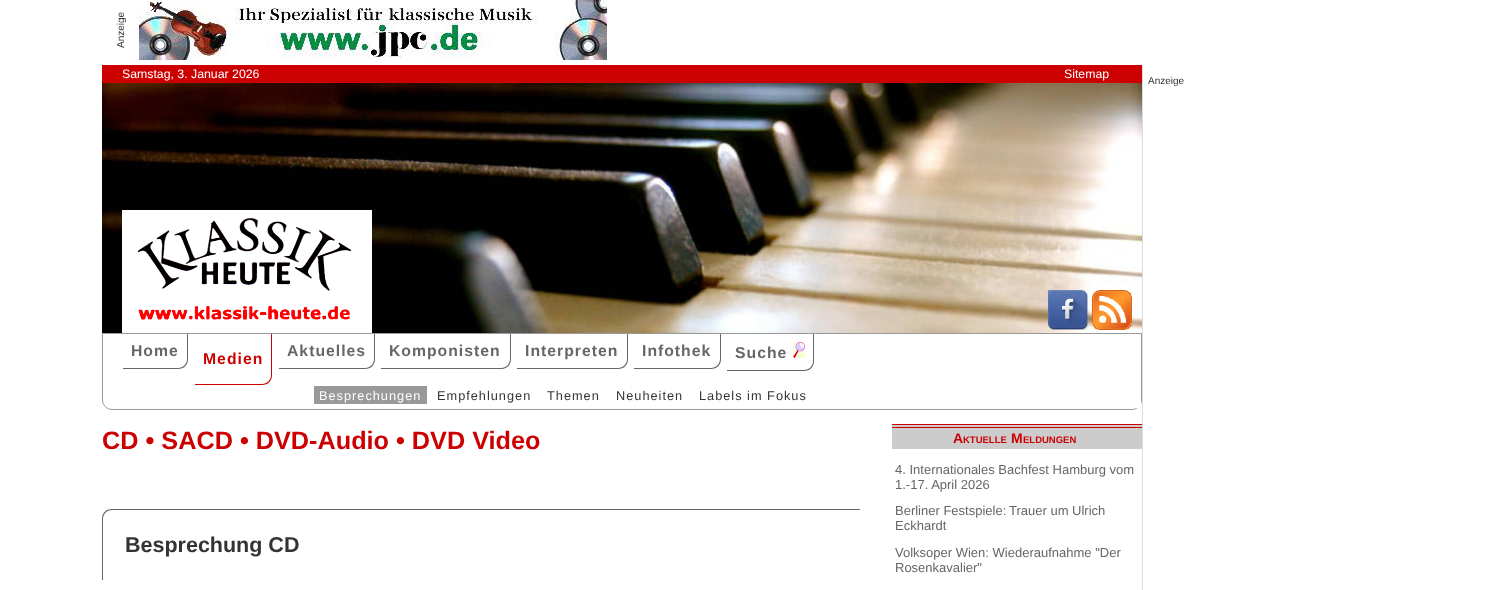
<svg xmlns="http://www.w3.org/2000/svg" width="1488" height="590">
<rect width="100%" height="100%" fill="#fff"/>
<text x="124" y="48" transform="rotate(-90 124 48)" style="font-family:Liberation Sans;font-size:10px;fill:#333">Anzeige</text>
<image x="139" y="0" width="468" height="60" href="media/1.png"/>
<rect x="102" y="65" width="1040" height="18" fill="#c00"/>
<text x="122" y="78" style="font-family:Liberation Sans;font-size:12.3px;fill:#fff">Samstag, 3. Januar 2026</text>
<text x="1064" y="78" style="font-family:Liberation Sans;font-size:12.3px;fill:#fff">Sitemap</text>
<rect x="1142" y="65" width="1" height="525" fill="#ddd"/>
<text x="1148" y="84" style="font-family:Liberation Sans;font-size:10px;fill:#333">Anzeige</text>
<image x="102" y="83" width="1040" height="250" href="media/2.png"/>
<image x="122" y="210" width="250" height="123" href="media/3.png"/>
<image x="1048" y="290" width="40" height="40" href="media/4.png"/>
<image x="1092" y="290" width="40" height="40" href="media/5.png"/>
<path d="M102.5 333.5h1039v66.5c0 5-4.5 9.5-9.5 9.5h-1020c-5 0-9.5-4.5-9.5-9.5z" fill="none" stroke="#999"/>
<rect x="1136" y="400" width="5" height="8" fill="#fff"/>
<path d="M123 334h65v25c0 6-4 10-10 10h-55zm0 0h64v25c0 5-4 9-9 9h-55z" fill="#666" fill-rule="evenodd"/>
<text x="131" y="356" style="font-family:Liberation Sans;font-size:15.75px;font-weight:bold;letter-spacing:1px;fill:#666">Home</text>
<path d="M195 334h77v41c0 6-4 10-10 10h-67zm0 0h76v41c0 5-4 9-9 9h-67z" fill="#c00" fill-rule="evenodd"/>
<text x="203" y="364" style="font-family:Liberation Sans;font-size:15.75px;font-weight:bold;letter-spacing:1px;fill:#c00">Medien</text>
<path d="M279 334h96v25c0 6-4 10-10 10h-86zm0 0h95v25c0 5-4 9-9 9h-86z" fill="#666" fill-rule="evenodd"/>
<text x="287" y="356" style="font-family:Liberation Sans;font-size:15.75px;font-weight:bold;letter-spacing:1px;fill:#666">Aktuelles</text>
<path d="M381 334h130v25c0 6-4 10-10 10h-120zm0 0h129v25c0 5-4 9-9 9h-120z" fill="#666" fill-rule="evenodd"/>
<text x="389" y="356" style="font-family:Liberation Sans;font-size:15.75px;font-weight:bold;letter-spacing:1px;fill:#666">Komponisten</text>
<path d="M517 334h111v25c0 6-4 10-10 10h-101zm0 0h110v25c0 5-4 9-9 9h-101z" fill="#666" fill-rule="evenodd"/>
<text x="525" y="356" style="font-family:Liberation Sans;font-size:15.75px;font-weight:bold;letter-spacing:1px;fill:#666">Interpreten</text>
<path d="M634 334h87v25c0 6-4 10-10 10h-77zm0 0h86v25c0 5-4 9-9 9h-77z" fill="#666" fill-rule="evenodd"/>
<text x="642" y="356" style="font-family:Liberation Sans;font-size:15.75px;font-weight:bold;letter-spacing:1px;fill:#666">Infothek</text>
<path d="M727 334h87v27c0 6-4 10-10 10h-77zm0 0h86v27c0 5-4 9-9 9h-77z" fill="#666" fill-rule="evenodd"/>
<text x="735" y="358" style="font-family:Liberation Sans;font-size:15.75px;font-weight:bold;letter-spacing:1px;fill:#666">Suche</text>
<image x="793" y="342" width="12" height="16" href="media/6.png"/>
<rect x="314" y="386" width="113" height="18" fill="#999"/>
<text x="319" y="400" style="font-family:Liberation Sans;font-size:12.75px;letter-spacing:1px;fill:#fff">Besprechungen</text>
<text x="437" y="400" style="font-family:Liberation Sans;font-size:12.75px;letter-spacing:1px;fill:#333">Empfehlungen</text>
<text x="547" y="400" style="font-family:Liberation Sans;font-size:12.75px;letter-spacing:1px;fill:#333">Themen</text>
<text x="616" y="400" style="font-family:Liberation Sans;font-size:12.75px;letter-spacing:1px;fill:#333">Neuheiten</text>
<text x="699" y="400" style="font-family:Liberation Sans;font-size:12.75px;letter-spacing:1px;fill:#333">Labels im Fokus</text>
<text x="102" y="449" style="font-family:Liberation Sans;font-size:25.25px;font-weight:bold;fill:#c00">CD • SACD • DVD-Audio • DVD Video</text>
<path d="M112 509h748v71h-758v-61c0-6 4-10 10-10zm0 1h748v70h-757v-61c0-5 4-9 9-9z" fill="#666" fill-rule="evenodd"/>
<text x="125" y="552" style="font-family:Liberation Sans;font-size:21.5px;font-weight:bold;fill:#333">Besprechung CD</text>
<rect x="892" y="425" width="250" height="24" fill="#ccc"/>
<rect x="892" y="424" width="250" height="1" fill="#c00"/>
<rect x="892" y="427" width="250" height="1" fill="#c00"/>
<text x="953" y="443" style="font-family:Liberation Sans;font-size:14px;font-weight:bold;fill:#c00">A</text>
<text x="963" y="443" style="font-family:Liberation Sans;font-size:9.5px;font-weight:bold;fill:#c00">KTUELLE</text>
<text x="1011" y="443" style="font-family:Liberation Sans;font-size:14px;font-weight:bold;fill:#c00">M</text>
<text x="1023" y="443" style="font-family:Liberation Sans;font-size:9.5px;font-weight:bold;fill:#c00">ELDUNGEN</text>
<text x="895" y="474" style="font-family:Liberation Sans;font-size:13px;fill:#666">4. Internationales Bachfest Hamburg vom</text>
<text x="895" y="489" style="font-family:Liberation Sans;font-size:13px;fill:#666">1.-17. April 2026</text>
<text x="895" y="515" style="font-family:Liberation Sans;font-size:13px;fill:#666">Berliner Festspiele:</text>
<text x="1009" y="515" style="font-family:Liberation Sans;font-size:13px;fill:#666">Trauer um Ulrich</text>
<text x="895" y="530" style="font-family:Liberation Sans;font-size:13px;fill:#666">Eckhardt</text>
<text x="895" y="557" style="font-family:Liberation Sans;font-size:13px;fill:#666">Volksoper Wien: Wiederaufnahme "Der</text>
<text x="895" y="572" style="font-family:Liberation Sans;font-size:13px;fill:#666">Rosenkavalier"</text>
</svg>
